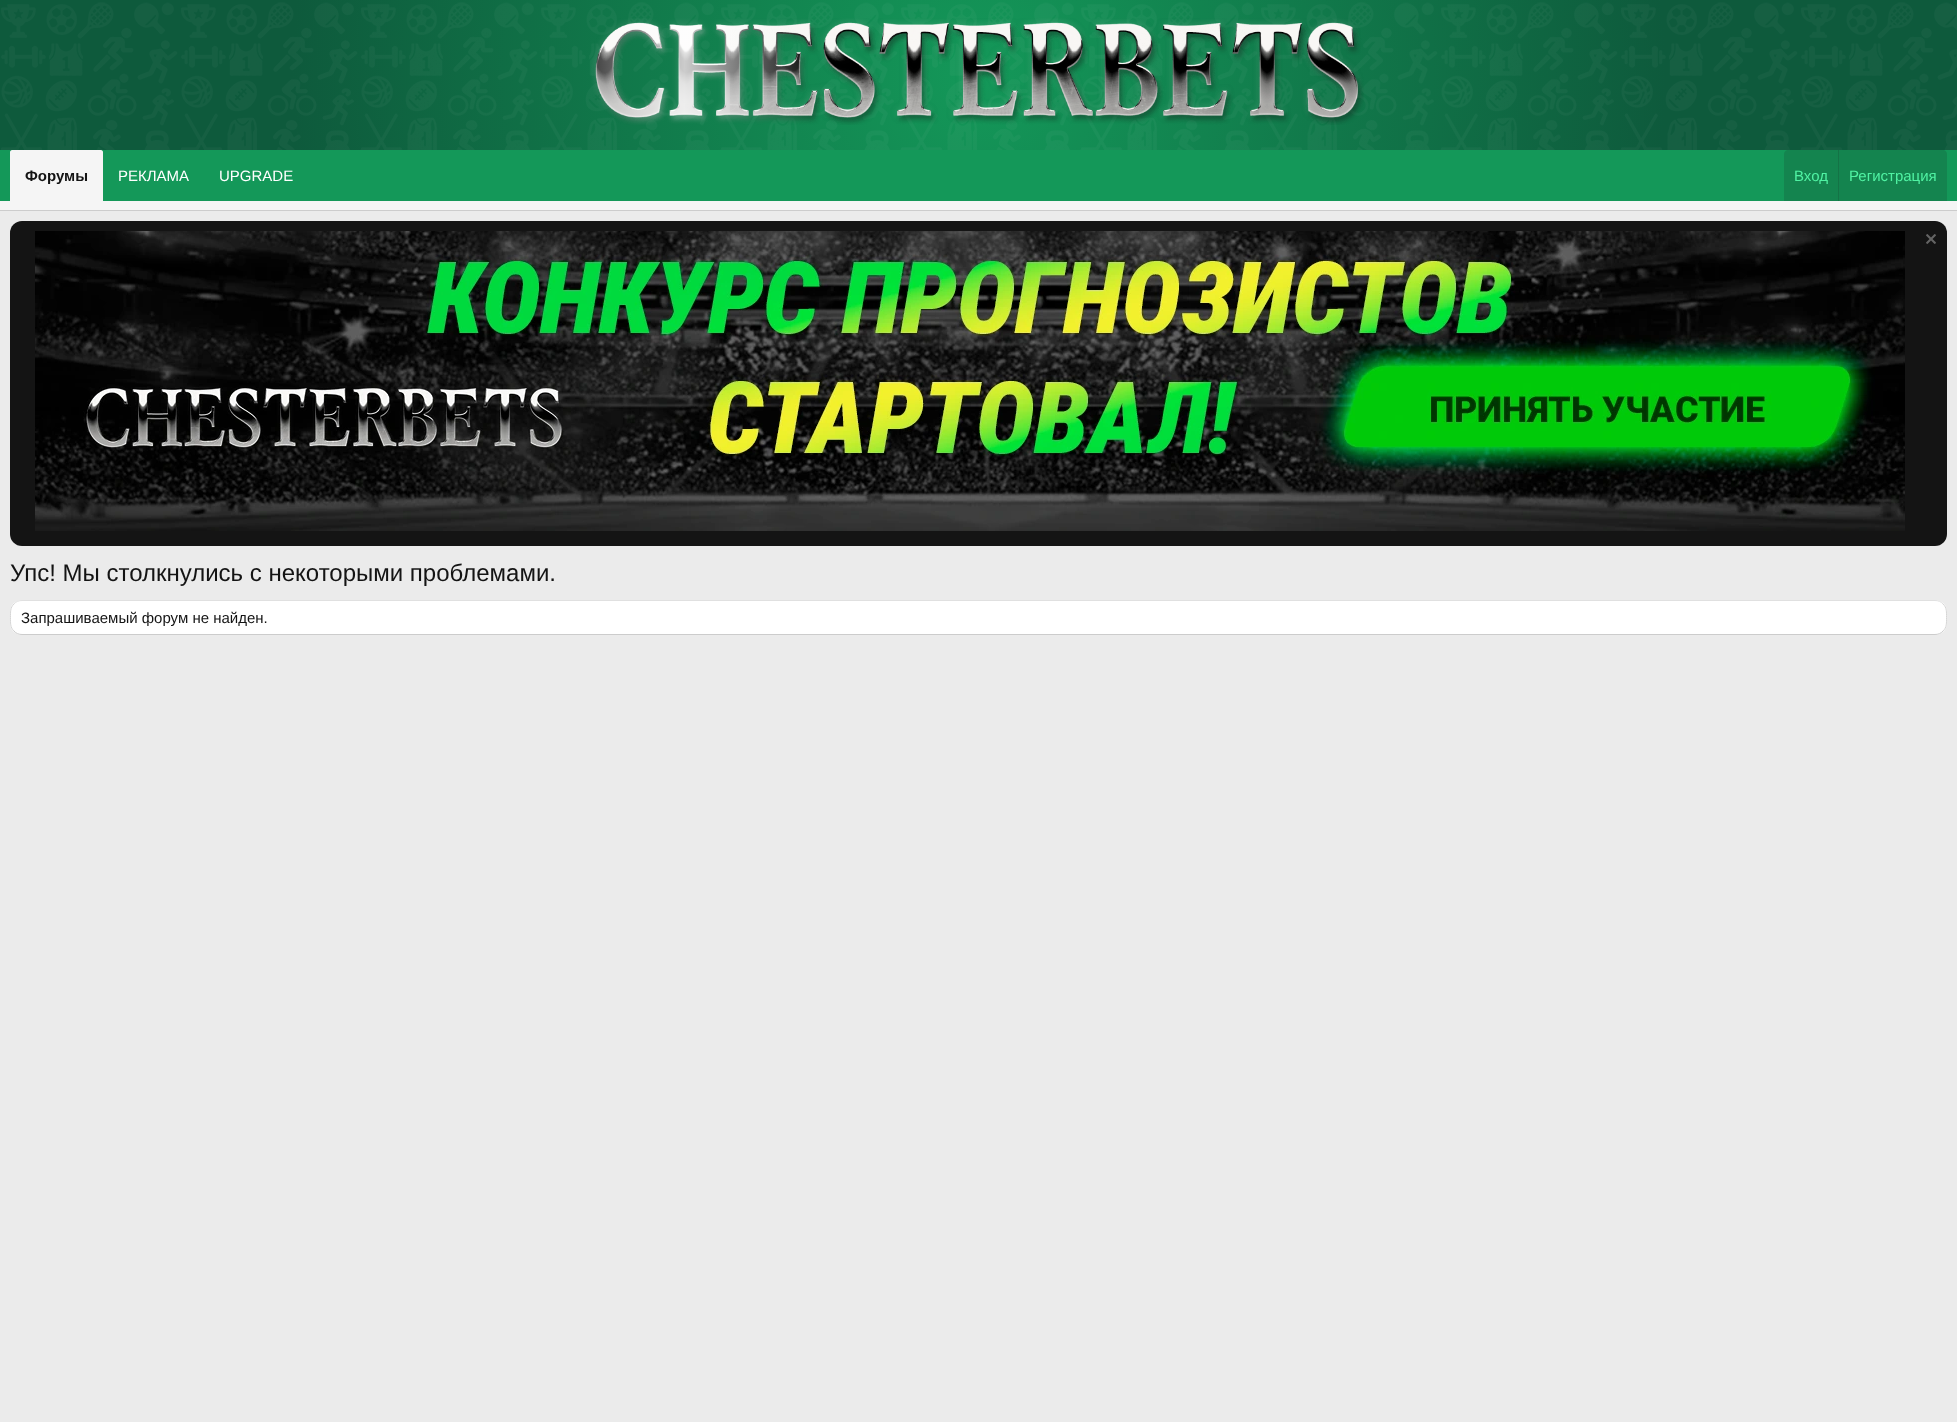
<svg xmlns="http://www.w3.org/2000/svg" width="1957" height="1422">
<defs>
<radialGradient id="g1" gradientUnits="userSpaceOnUse" cx="979" cy="75" r="981"><stop offset="0" stop-color="#149859"/><stop offset="0.7" stop-color="#0e5a3c"/></radialGradient>
</defs>
<rect width="100%" height="100%" fill="#ebebeb"/>
<rect width="1957" height="150" fill="url(#g1)"/>
<image x="1" y="2" width="1956" height="148" href="media/1.png"/>
<image x="591" y="18" width="773" height="107" href="media/2.png"/>
<rect y="150" width="1957" height="51" fill="#149859"/>
<path d="M12 150h89c1 0 2 1 2 2v49h-93v-49c0-1 1-2 2-2z" fill="#f5f5f5"/>
<text x="25" y="181" style="font-family:Liberation Sans;font-size:15px;font-weight:bold;fill:#141414">Форумы</text>
<text x="118" y="181" style="font-family:Liberation Sans;font-size:15px;fill:#fff">РЕКЛАМА</text>
<text x="219" y="181" style="font-family:Liberation Sans;font-size:15px;fill:#fff">UPGRADE</text>
<path d="M1788 150h155c2 0 4 2 4 4v47h-163v-47c0-2 2-4 4-4z" fill="#14844f"/>
<text x="1794" y="181" style="font-family:Liberation Sans;font-size:15px;fill:#50f2a3">Вход</text>
<rect x="1838" y="150" width="1" height="51" fill="#147346"/>
<text x="1849" y="181" style="font-family:Liberation Sans;font-size:15px;fill:#50f2a3">Регистрация</text>
<rect y="201" width="1957" height="9" fill="#f5f5f5"/>
<rect y="210" width="1957" height="1" fill="#ccc"/>
<rect x="10" y="221" width="1937" height="325" rx="12" fill="#141414"/>
<image x="35" y="231" width="1870" height="300" href="media/3.png"/>
<image x="1926" y="234" width="10" height="10" href="media/4.png"/>
<text x="10" y="581" style="font-family:Liberation Sans;font-size:24px;fill:#141414">Упс! Мы столкнулись с некоторыми проблемами.</text>
<rect x="10" y="600" width="1937" height="35" rx="12" fill="#fff"/>
<path d="M14 604c2-2.5 5-3.5 8-3.5h1913c3 0 6 1 8 3.5" fill="none" stroke="#e0e0e0"/>
<path d="M1943 604c4 3.5 3.5 8.5 3.5 13.5c0 5 .5 10-3.5 13.5" fill="none" stroke="#d6d6d6"/>
<path d="M1943 631c-2 2.5-5 3.5-8 3.5h-1913c-3 0-6-1-8-3.5" fill="none" stroke="#ccc"/>
<path d="M14 631c-4-3.5-3.5-8.5-3.5-13.5c0-5-.5-10 3.5-13.5" fill="none" stroke="#d6d6d6"/>
<text x="21" y="623" style="font-family:Liberation Sans;font-size:15px;fill:#141414">Запрашиваемый форум не найден.</text>
</svg>
